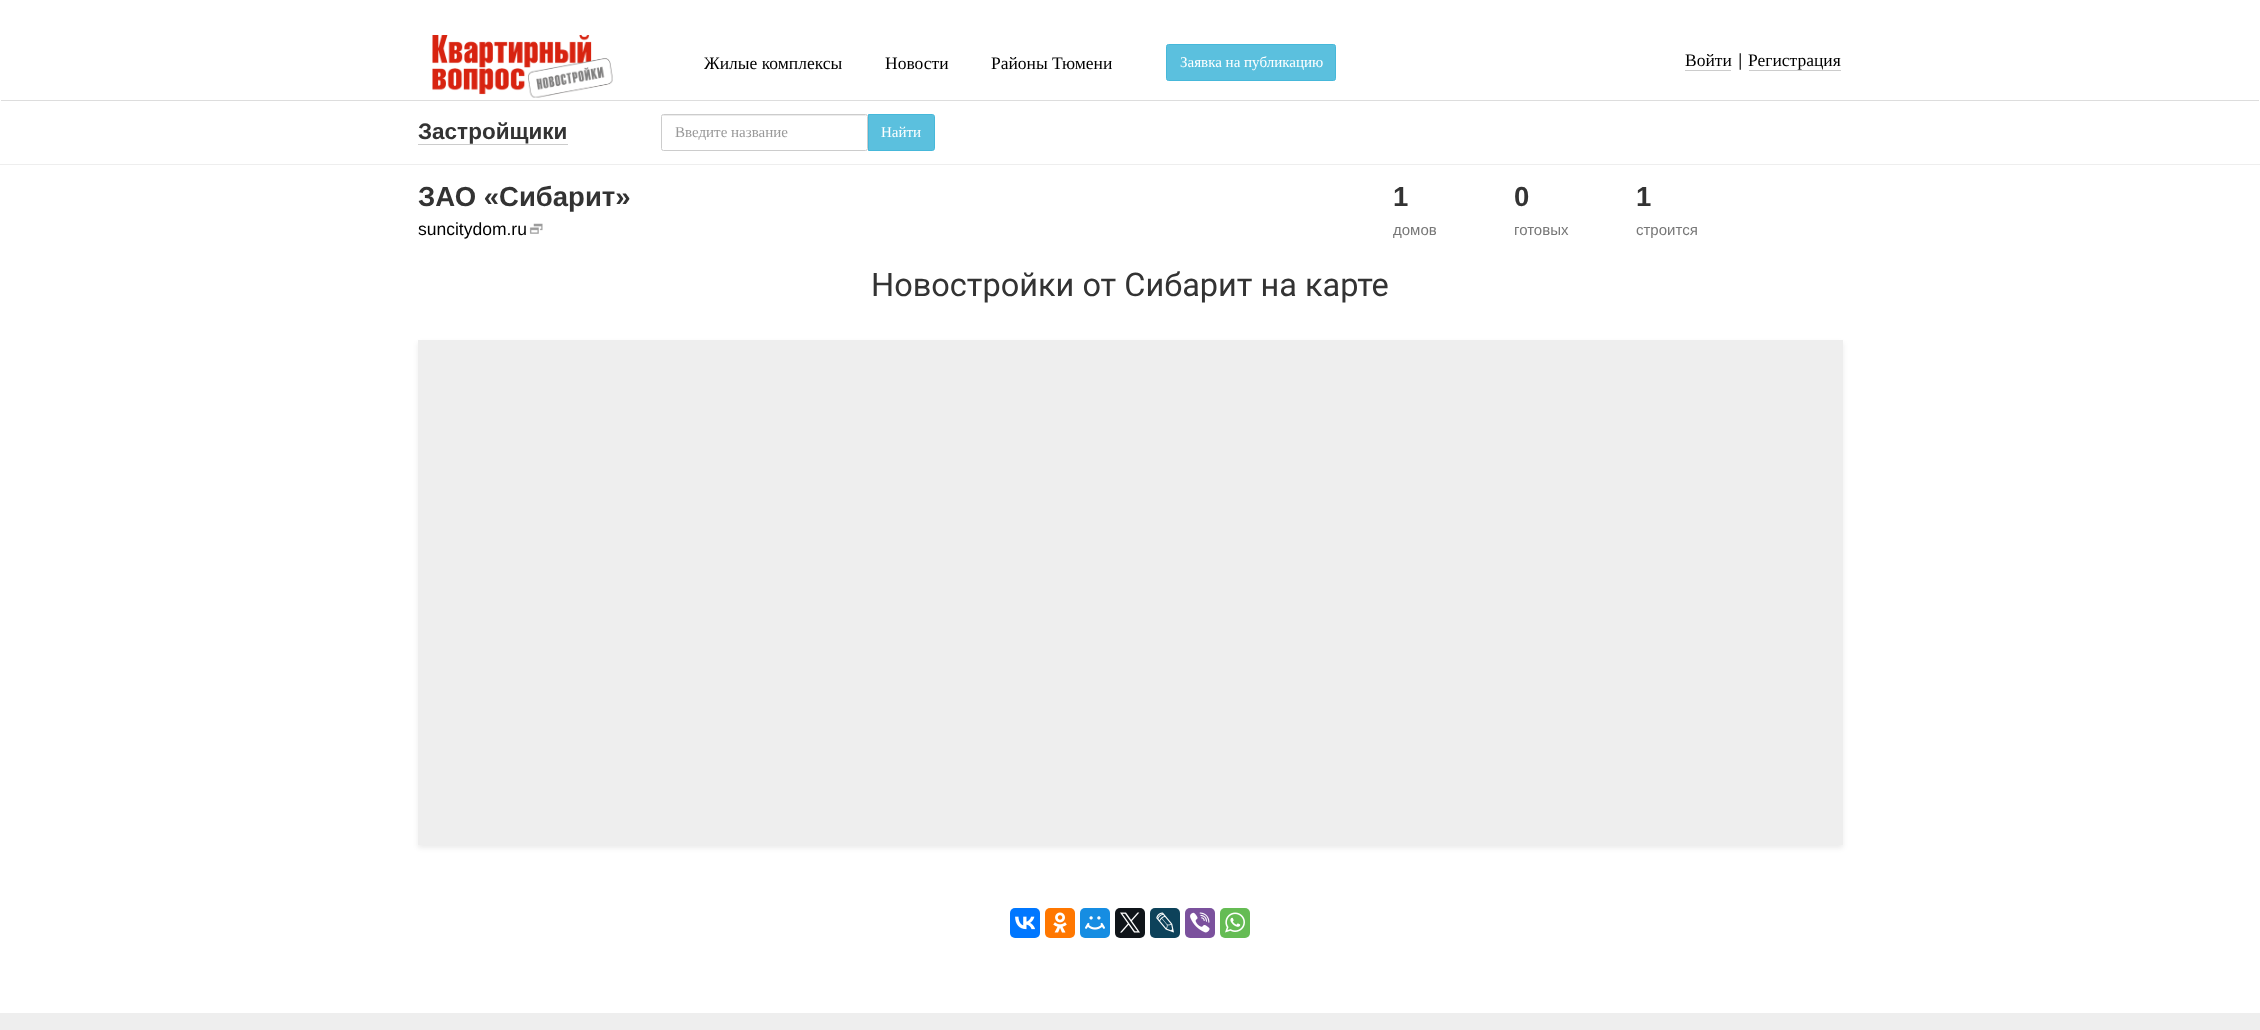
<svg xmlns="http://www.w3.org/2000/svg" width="2260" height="1030">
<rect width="100%" height="100%" fill="#fff"/>
<rect x="1" y="100" width="2258" height="1" fill="#ddd"/>
<image x="432" y="35" width="181" height="63" href="media/1.png"/>
<text x="704" y="69" style="font-family:Liberation Serif;font-size:17.5px;fill:#000">Жилые комплексы</text>
<text x="885" y="69" style="font-family:Liberation Serif;font-size:17.5px;fill:#000">Новости</text>
<text x="991" y="69" style="font-family:Liberation Serif;font-size:17.5px;fill:#000">Районы Тюмени</text>
<rect x="1166.5" y="44.5" width="169" height="36" rx="2" fill="#5bc0de" stroke="#46b8da"/>
<text x="1180" y="67" style="font-family:Liberation Serif;font-size:15px;fill:#fff">Заявка на публикацию</text>
<text x="1685" y="66" style="font-family:Liberation Serif;font-size:17.5px;fill:#000">Войти</text>
<rect x="1685" y="70" width="46" height="1" fill="#ccc"/>
<text x="1738" y="66" style="font-family:Liberation Sans;font-size:17.5px;fill:#333">|</text>
<text x="1748" y="66" style="font-family:Liberation Serif;font-size:17.5px;fill:#000">Регистрация</text>
<rect x="1749" y="70" width="92" height="1" fill="#ccc"/>
<rect y="164" width="2260" height="1" fill="#eee"/>
<text x="418" y="139" style="font-family:Liberation Sans;font-size:22.5px;font-weight:bold;fill:#333">Застройщики</text>
<rect x="418" y="144" width="150" height="1" fill="#ccc"/>
<path d="M664 116h201c1 0 1 1 1 2c0-1 0-3-1-3h-202v1z" fill="#ececec"/>
<rect x="661.5" y="114.5" width="206" height="36" rx="2" fill="none" stroke="#ccc"/>
<text x="675" y="137" style="font-family:Liberation Serif;font-size:15px;fill:#999">Введите название</text>
<path d="M868.5 114.5h64c1 0 2 1 2 2v32c0 1-1 2-2 2h-64z" fill="#5bc0de" stroke="#46b8da"/>
<text x="881" y="137" style="font-family:Liberation Serif;font-size:15px;fill:#fff">Найти</text>
<text x="418" y="206" style="font-family:Liberation Sans;font-size:27.5px;font-weight:bold;fill:#333">ЗАО «Сибарит»</text>
<text x="418" y="235" style="font-family:Liberation Sans;font-size:17.5px;fill:#000">suncitydom.ru</text>
<image x="529" y="223" width="14" height="11" href="media/2.png"/>
<text x="1393" y="206" style="font-family:Liberation Sans;font-size:27.5px;font-weight:bold;fill:#333">1</text>
<text x="1393" y="235" style="font-family:Liberation Sans;font-size:15px;fill:#777">домов</text>
<text x="1514" y="206" style="font-family:Liberation Sans;font-size:27.5px;font-weight:bold;fill:#333">0</text>
<text x="1514" y="235" style="font-family:Liberation Sans;font-size:15px;fill:#777">готовых</text>
<text x="1636" y="206" style="font-family:Liberation Sans;font-size:27.5px;font-weight:bold;fill:#333">1</text>
<text x="1636" y="235" style="font-family:Liberation Sans;font-size:15px;fill:#777">строится</text>
<text x="871" y="296" style="font-family:Roboto;font-size:32.5px;fill:#333">Новостройки от Сибарит на карте</text>
<rect x="418" y="343" width="1425" height="505" fill="#00000014" filter="blur(2.5px)"/>
<rect x="418" y="340" width="1425" height="505" fill="#eee"/>
<rect x="1010" y="908" width="30" height="30" rx="5" fill="#07f"/>
<image x="1015" y="916" width="20" height="14" href="media/3.png"/>
<rect x="1045" y="908" width="30" height="30" rx="5" fill="#f70"/>
<image x="1053" y="912" width="14" height="21" href="media/4.png"/>
<rect x="1080" y="908" width="30" height="30" rx="5" fill="#168de2"/>
<image x="1085" y="916" width="20" height="14" href="media/5.png"/>
<rect x="1115" y="908" width="30" height="30" rx="5" fill="#0f1419"/>
<image x="1120" y="912" width="20" height="21" href="media/6.png"/>
<rect x="1150" y="908" width="30" height="30" rx="5" fill="#0d425a"/>
<image x="1156" y="912" width="18" height="21" href="media/7.png"/>
<rect x="1185" y="908" width="30" height="30" rx="5" fill="#7b519d"/>
<image x="1190" y="912" width="20" height="21" href="media/8.png"/>
<rect x="1220" y="908" width="30" height="30" rx="5" fill="#65bc54"/>
<image x="1225" y="912" width="20" height="21" href="media/9.png"/>
<rect y="1013" width="2260" height="17" fill="#eee"/>
</svg>
